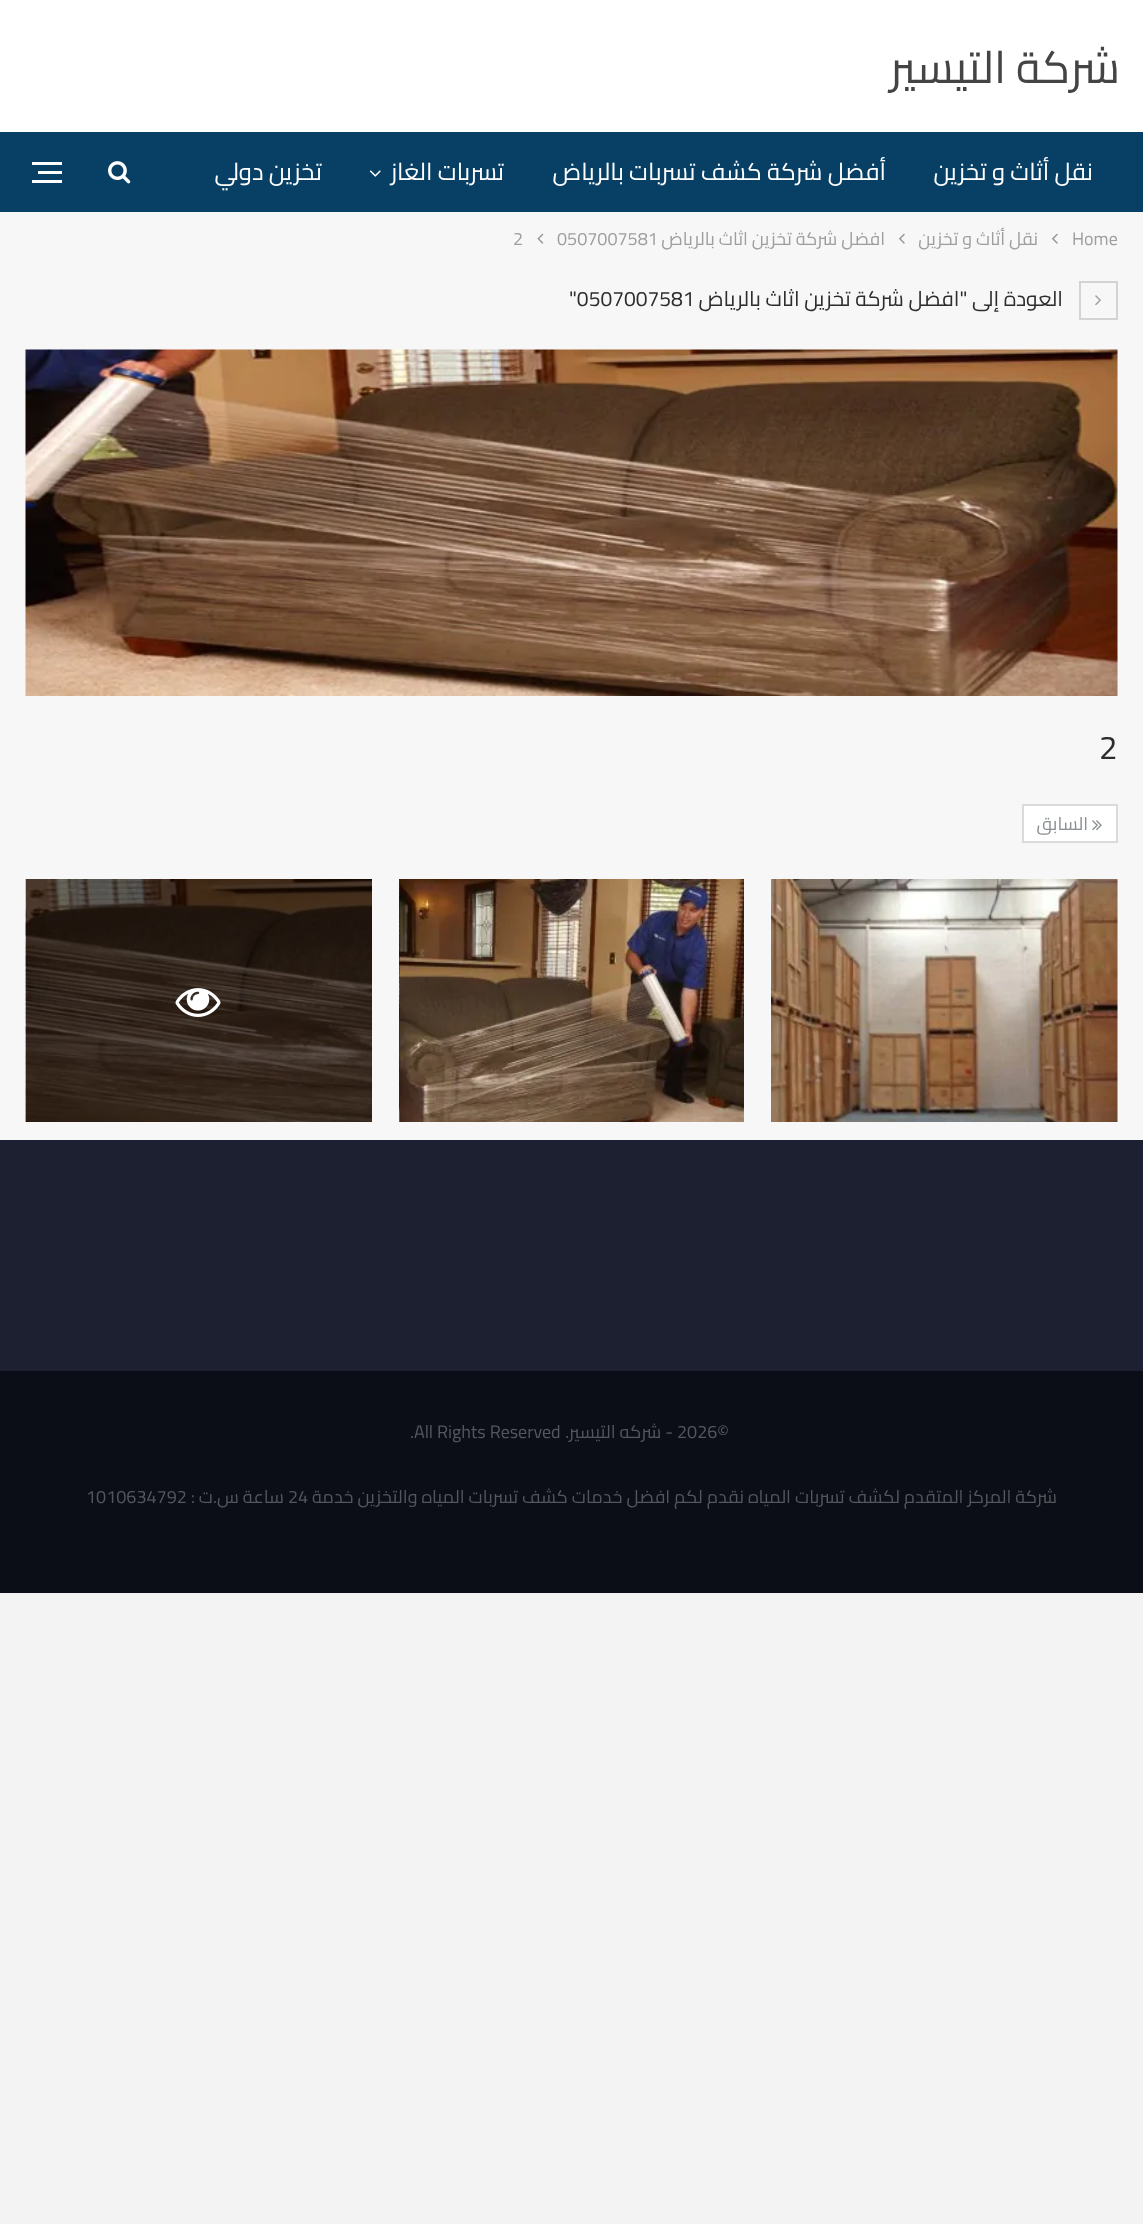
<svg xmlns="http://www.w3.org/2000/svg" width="1143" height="2224">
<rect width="100%" height="100%" fill="#f3f3f3"/>
<rect y="212" width="1143" height="928" fill="#f7f7f7"/>
<rect width="1143" height="132" fill="#fff"/>
<text x="1120" y="83" style="font-family:Cairo;font-size:45px;direction:rtl;fill:#444">شركة التيسير</text>
<rect y="132" width="1143" height="80" fill="#074064"/>
<text x="1093" y="180" style="font-family:Cairo;font-size:24px;direction:rtl;fill:#fff">نقل أثاث و تخزين</text>
<text x="886" y="180" style="font-family:Cairo;font-size:24px;direction:rtl;fill:#fff">أفضل شركة كشف تسربات بالرياض</text>
<text x="504" y="180" style="font-family:Cairo;font-size:24px;direction:rtl;fill:#fff">تسربات الغاز</text>
<image x="369" y="170" width="12" height="7" href="media/1.png"/>
<text x="322" y="180" style="font-family:Cairo;font-size:24px;direction:rtl;fill:#fff">تخزين دولي</text>
<image x="108" y="161" width="23" height="23" href="media/2.png"/>
<rect x="38" y="171" width="24" height="3" fill="#fff"/>
<rect x="32" y="162" width="30" height="3" fill="#fff"/>
<rect x="32" y="180" width="30" height="3" fill="#fff"/>
<text x="1072" y="245" style="font-family:Cairo;font-size:18px;fill:#9e9e9e">Home</text>
<image x="1052" y="233" width="6" height="11" href="media/3.png"/>
<text x="1038" y="245" style="font-family:Cairo;font-size:18px;direction:rtl;fill:#9e9e9e">نقل أثاث و تخزين</text>
<image x="899" y="233" width="6" height="11" href="media/3.png"/>
<text x="885" y="245" style="font-family:Cairo;font-size:18px;direction:rtl;fill:#9e9e9e">افضل شركة تخزين اثاث بالرياض</text>
<text x="557" y="245" style="font-family:Cairo;font-size:18px;fill:#9e9e9e">0507007581</text>
<image x="537" y="233" width="7" height="11" href="media/4.png"/>
<text x="513" y="245" style="font-family:Cairo;font-size:18px;fill:#9e9e9e">2</text>
<rect x="1080" y="282" width="37" height="37" fill="none" stroke="#d3d3d3" stroke-width="2"/>
<image x="1095" y="295" width="6" height="11" href="media/5.png"/>
<text x="1063" y="306" style="font-family:Cairo;font-size:21px;direction:rtl;fill:#2d2d2d">العودة إلى "افضل شركة تخزين اثاث بالرياض</text>
<text x="569" y="306" style="font-family:Cairo;font-size:21px;fill:#2d2d2d">"0507007581</text>
<image x="25" y="349" width="1093" height="347" href="media/6.png"/>
<text x="1099" y="759" style="font-family:Cairo;font-size:33px;fill:#2d2d2d">2</text>
<rect x="1023" y="805" width="94" height="37" fill="#fff" stroke="#dadada" stroke-width="2"/>
<image x="1092" y="820" width="10" height="11" href="media/7.png"/>
<text x="1088" y="830" style="font-family:Cairo;font-size:18px;direction:rtl;fill:#8a8f92">السابق</text>
<image x="771" y="879" width="347" height="243" href="media/8.png"/>
<image x="399" y="879" width="345" height="243" href="media/9.png"/>
<image x="25" y="879" width="347" height="243" href="media/10.png"/>
<image x="175" y="988" width="46" height="29" href="media/11.png"/>
<rect y="1140" width="1143" height="231" fill="#1c2031"/>
<rect y="1371" width="1143" height="222" fill="#0c0e17"/>
<text x="677" y="1438" style="font-family:Cairo;font-size:18px;fill:#55565d">2026©</text>
<text x="673" y="1438" style="font-family:Cairo;font-size:18px;direction:rtl;fill:#55565d">- شركه التيسير.</text>
<text x="410" y="1438" style="font-family:Cairo;font-size:18px;fill:#55565d">.All Rights Reserved</text>
<text x="1057" y="1503" style="font-family:Cairo;font-size:18px;direction:rtl;fill:#55565d">شركة المركز المتقدم لكشف تسربات المياه نقدم لكم افضل خدمات كشف تسربات المياه والتخزين خدمة</text>
<text x="288" y="1503" style="font-family:Cairo;font-size:18px;fill:#55565d">24</text>
<text x="284" y="1503" style="font-family:Cairo;font-size:18px;direction:rtl;fill:#55565d">ساعة س.ت :</text>
<text x="86" y="1503" style="font-family:Cairo;font-size:18px;fill:#55565d">1010634792</text>
</svg>
